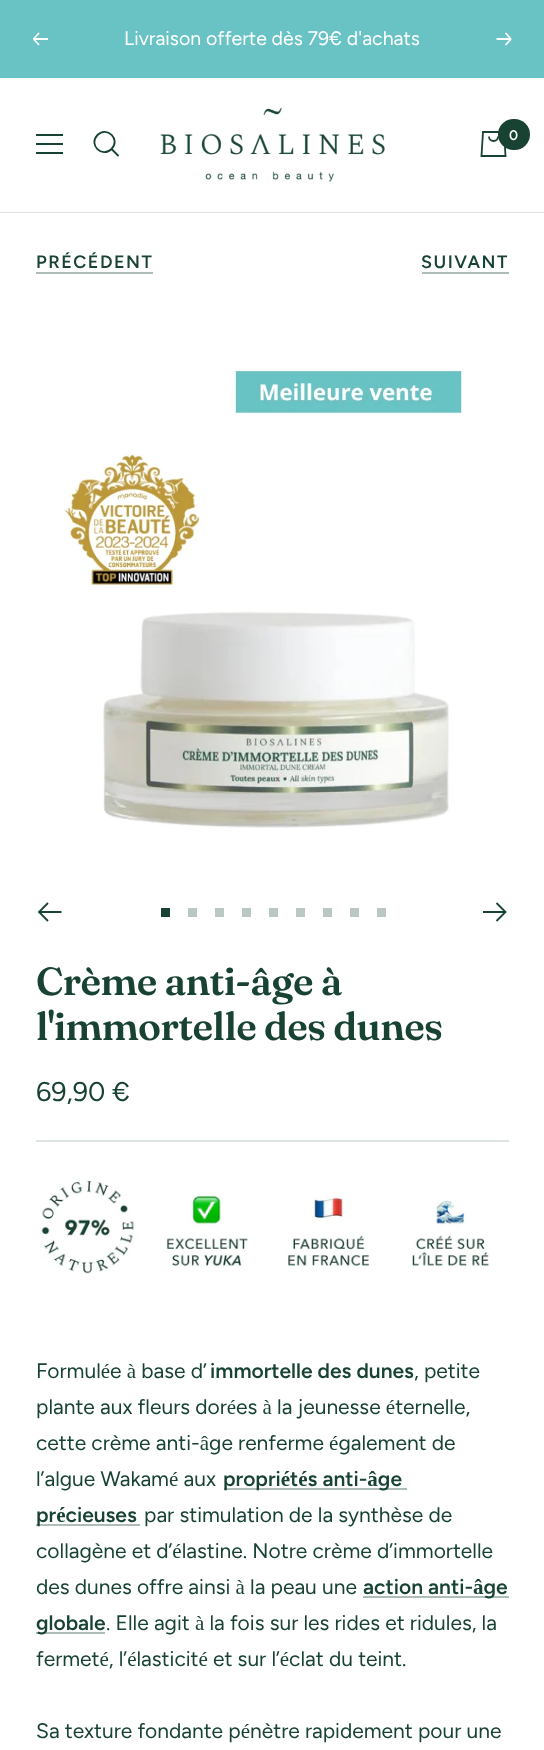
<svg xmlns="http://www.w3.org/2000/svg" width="544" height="1750">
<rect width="100%" height="100%" fill="#fff"/>
<rect width="544" height="78" fill="#69c2c4"/>
<path d="M48 39h-14.5m0 0l5.5 6m-5.5-6l5.5-6" fill="none" stroke="#fff" stroke-width="1.8"/>
<text x="124" y="45" style="font-family:Figtree;font-size:19.5px;fill:#fff">Livraison offerte dès 79€ d'achats</text>
<path d="M496.5 39h14.5m0 0l-5.5 6m5.5-6l-5.5-6" fill="none" stroke="#fff" stroke-width="1.8"/>
<path d="M0 212v1h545v-133h-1v132z" fill="#dce3e0"/>
<path d="M36 135h27m-27 18h27zm0-9h27z" fill="none" stroke="#184333" stroke-width="1.8"/>
<path d="M111.5 149c9.5-9.5-4.5-23.5-14-14c-9.5 9.5 4.5 23.5 14 14zm0 0l7 7" fill="none" stroke="#184333" stroke-width="1.8"/>
<image x="160" y="108" width="225" height="74" href="media/1.png"/>
<path d="M483 132h21l1.5 24h-24zm6 4.5c0 6 9 6 9 0" fill="none" stroke="#184333" stroke-width="1.8"/>
<rect x="498" y="119" width="32" height="31" rx="15.5" fill="#184333"/>
<text x="509" y="140" style="font-family:Figtree;font-size:14px;font-weight:600;fill:#fff">0</text>
<text x="36" y="268" style="font-family:Figtree;font-size:18px;font-weight:600;letter-spacing:1.5px;fill:#184333">PRÉCÉDENT</text>
<rect x="36" y="272" width="117" height="2" fill="#aebdb8"/>
<text x="421" y="268" style="font-family:Figtree;font-size:18px;font-weight:600;letter-spacing:1.5px;fill:#184333">SUIVANT</text>
<rect x="422" y="272" width="87" height="2" fill="#aebdb8"/>
<image x="63" y="367" width="400" height="462" href="media/2.png"/>
<path d="M61.5 912h-22.5m9-9l-9 9l9 9" fill="none" stroke="#184333" stroke-width="1.8"/>
<rect x="161" y="908" width="9" height="9" fill="#184333"/>
<rect x="188" y="908" width="9" height="9" fill="#bac7c2"/>
<rect x="215" y="908" width="9" height="9" fill="#bac7c2"/>
<rect x="242" y="908" width="9" height="9" fill="#bac7c2"/>
<rect x="269" y="908" width="9" height="9" fill="#bac7c2"/>
<rect x="296" y="908" width="9" height="9" fill="#bac7c2"/>
<rect x="323" y="908" width="9" height="9" fill="#bac7c2"/>
<rect x="350" y="908" width="9" height="9" fill="#bac7c2"/>
<rect x="377" y="908" width="9" height="9" fill="#bac7c2"/>
<path d="M483 912h22.5m-9-9l9 9l-9 9" fill="none" stroke="#184333" stroke-width="1.8"/>
<rect x="36" y="1140" width="473" height="2" fill="#dce3e0"/>
<text x="36" y="995" style="font-family:Fraunces;font-size:39px;font-weight:600;letter-spacing:-0.6px;fill:#184333">Crème anti-âge à</text>
<text x="36" y="1040" style="font-family:Fraunces;font-size:39px;font-weight:600;letter-spacing:-0.6px;fill:#184333">l'immortelle des dunes</text>
<text x="36" y="1101" style="font-family:Figtree;font-size:27px;fill:#184333">69,90 €</text>
<image x="40" y="1178" width="450" height="96" href="media/3.png"/>
<text x="36" y="1378" style="font-family:Figtree;font-size:21px;fill:#184333">Formulée à base d’</text>
<text x="210" y="1378" style="font-family:Figtree;font-size:21px;font-weight:600;fill:#184333">immortelle des dunes</text>
<text x="414" y="1378" style="font-family:Figtree;font-size:21px;fill:#184333">, petite</text>
<text x="36" y="1414" style="font-family:Figtree;font-size:21px;fill:#184333">plante aux fleurs dorées à la jeunesse éternelle,</text>
<text x="36" y="1450" style="font-family:Figtree;font-size:21px;fill:#184333">cette crème anti-âge renferme également de</text>
<text x="36" y="1486" style="font-family:Figtree;font-size:21px;fill:#184333">l’algue Wakamé aux</text>
<rect x="224" y="1488" width="183" height="2" fill="#aebdb8"/>
<text x="223" y="1486" style="font-family:Figtree;font-size:21px;font-weight:600;fill:#184333">propriétés anti-âge</text>
<rect x="36" y="1524" width="104" height="2" fill="#aebdb8"/>
<text x="36" y="1522" style="font-family:Figtree;font-size:21px;font-weight:600;fill:#184333">précieuses</text>
<text x="144" y="1522" style="font-family:Figtree;font-size:21px;fill:#184333">par stimulation de la synthèse de</text>
<text x="36" y="1558" style="font-family:Figtree;font-size:21px;fill:#184333">collagène et d’élastine. Notre crème d’immortelle</text>
<text x="36" y="1594" style="font-family:Figtree;font-size:21px;fill:#184333">des dunes offre ainsi à la peau une</text>
<rect x="363" y="1596" width="146" height="2" fill="#aebdb8"/>
<text x="363" y="1594" style="font-family:Figtree;font-size:21px;font-weight:600;fill:#184333">action anti-âge</text>
<rect x="36" y="1632" width="69" height="2" fill="#aebdb8"/>
<text x="36" y="1630" style="font-family:Figtree;font-size:21px;font-weight:600;fill:#184333">globale</text>
<text x="106" y="1630" style="font-family:Figtree;font-size:21px;fill:#184333">. Elle agit à la fois sur les rides et ridules, la</text>
<text x="36" y="1666" style="font-family:Figtree;font-size:21px;fill:#184333">fermeté, l’élasticité et sur l’éclat du teint.</text>
<text x="36" y="1738" style="font-family:Figtree;font-size:21px;fill:#184333">Sa texture fondante pénètre rapidement pour une</text>
</svg>
